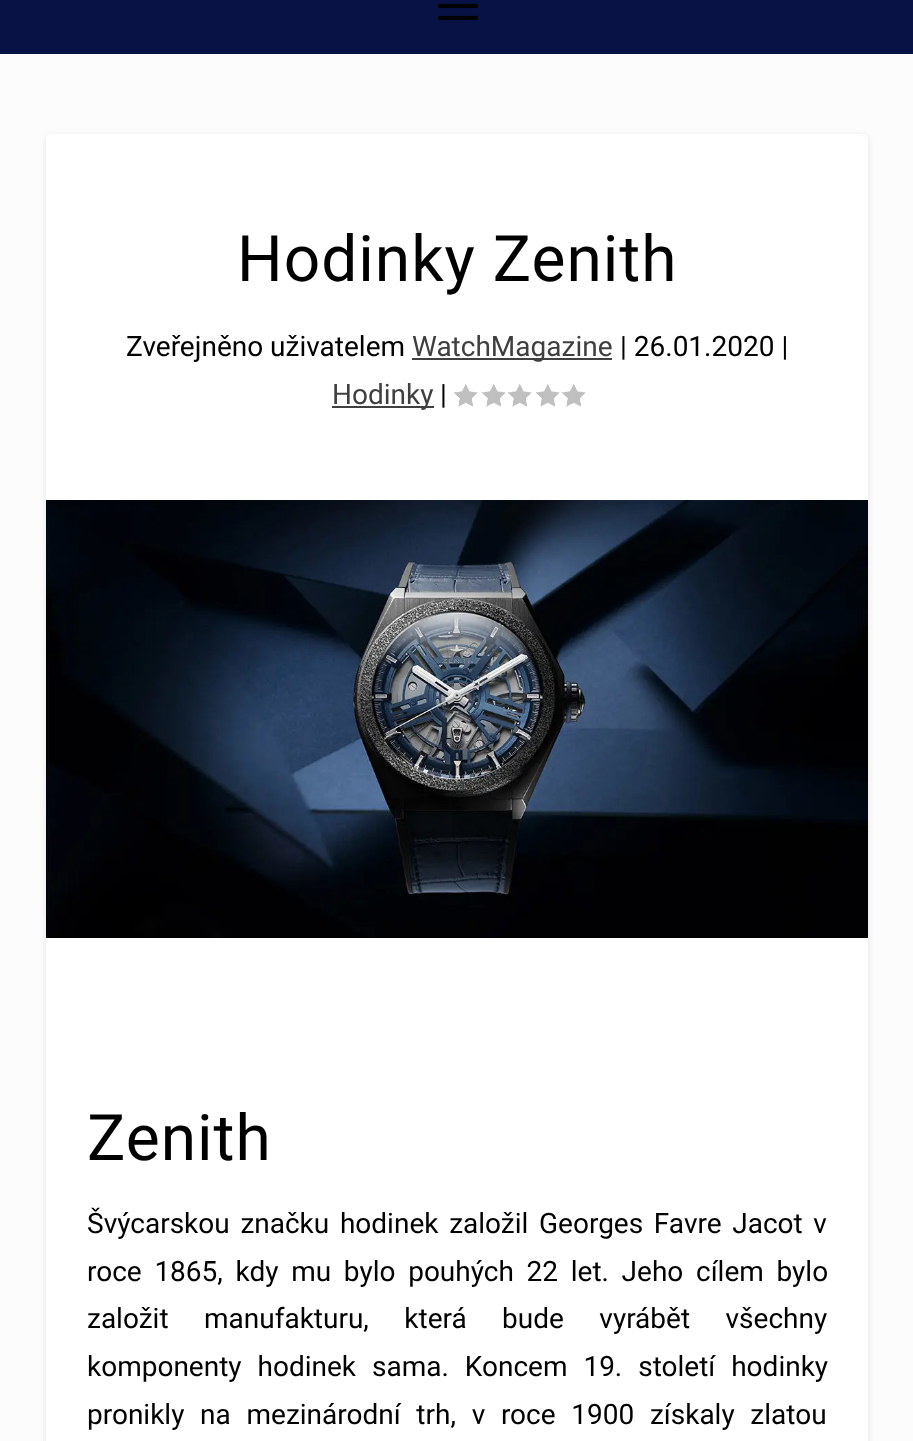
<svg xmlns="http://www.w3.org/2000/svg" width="913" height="1441">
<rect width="100%" height="100%" fill="#fcfcfc"/>
<rect width="913" height="54" fill="#081244"/>
<image x="438" y="3" width="40" height="17" href="media/1.png"/>
<rect x="46" y="136" width="822" height="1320" rx="6" fill="#0000001a" filter="blur(3px)"/>
<rect x="46" y="134" width="822" height="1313" rx="6" fill="#fff"/>
<text x="237" y="281" style="font-family:Roboto;font-size:64px;letter-spacing:1px;fill:#000">Hodinky Zenith</text>
<text x="126" y="356" style="font-family:Roboto;font-size:28px;fill:#000">Zveřejněno uživatelem</text>
<rect x="412" y="358" width="200" height="2" fill="#404040"/>
<text x="412" y="356" style="font-family:Roboto;font-size:28px;fill:#3f3f3f">WatchMagazine</text>
<text x="620" y="356" style="font-family:Roboto;font-size:28px;fill:#000">| 26.01.2020 |</text>
<rect x="332" y="406" width="102" height="2" fill="#404040"/>
<text x="332" y="404" style="font-family:Roboto;font-size:28px;fill:#3f3f3f">Hodinky</text>
<text x="440" y="404" style="font-family:Roboto;font-size:28px;fill:#000">|</text>
<image x="454" y="384" width="24" height="23" href="media/2.png"/>
<image x="482" y="384" width="24" height="23" href="media/2.png"/>
<image x="508" y="384" width="24" height="23" href="media/2.png"/>
<image x="536" y="384" width="24" height="23" href="media/2.png"/>
<image x="562" y="384" width="24" height="23" href="media/2.png"/>
<image x="46" y="500" width="822" height="438" href="media/3.png"/>
<text x="87" y="1160" style="font-family:Roboto;font-size:64px;letter-spacing:1px;fill:#000">Zenith</text>
<text x="87" y="1233" word-spacing="3.75" style="font-family:Roboto;font-size:28px;fill:#000">Švýcarskou značku hodinek založil Georges Favre Jacot v</text>
<text x="87" y="1281" word-spacing="5.75" style="font-family:Roboto;font-size:28px;fill:#000">roce 1865, kdy mu bylo pouhých 22 let. Jeho cílem bylo</text>
<text x="87" y="1328" word-spacing="28.5" style="font-family:Roboto;font-size:28px;fill:#000">založit manufakturu, která bude vyrábět všechny</text>
<text x="87" y="1376" word-spacing="9" style="font-family:Roboto;font-size:28px;fill:#000">komponenty hodinek sama. Koncem 19. století hodinky</text>
<text x="87" y="1424" word-spacing="8.75" style="font-family:Roboto;font-size:28px;fill:#000">pronikly na mezinárodní trh, v roce 1900 získaly zlatou</text>
</svg>
